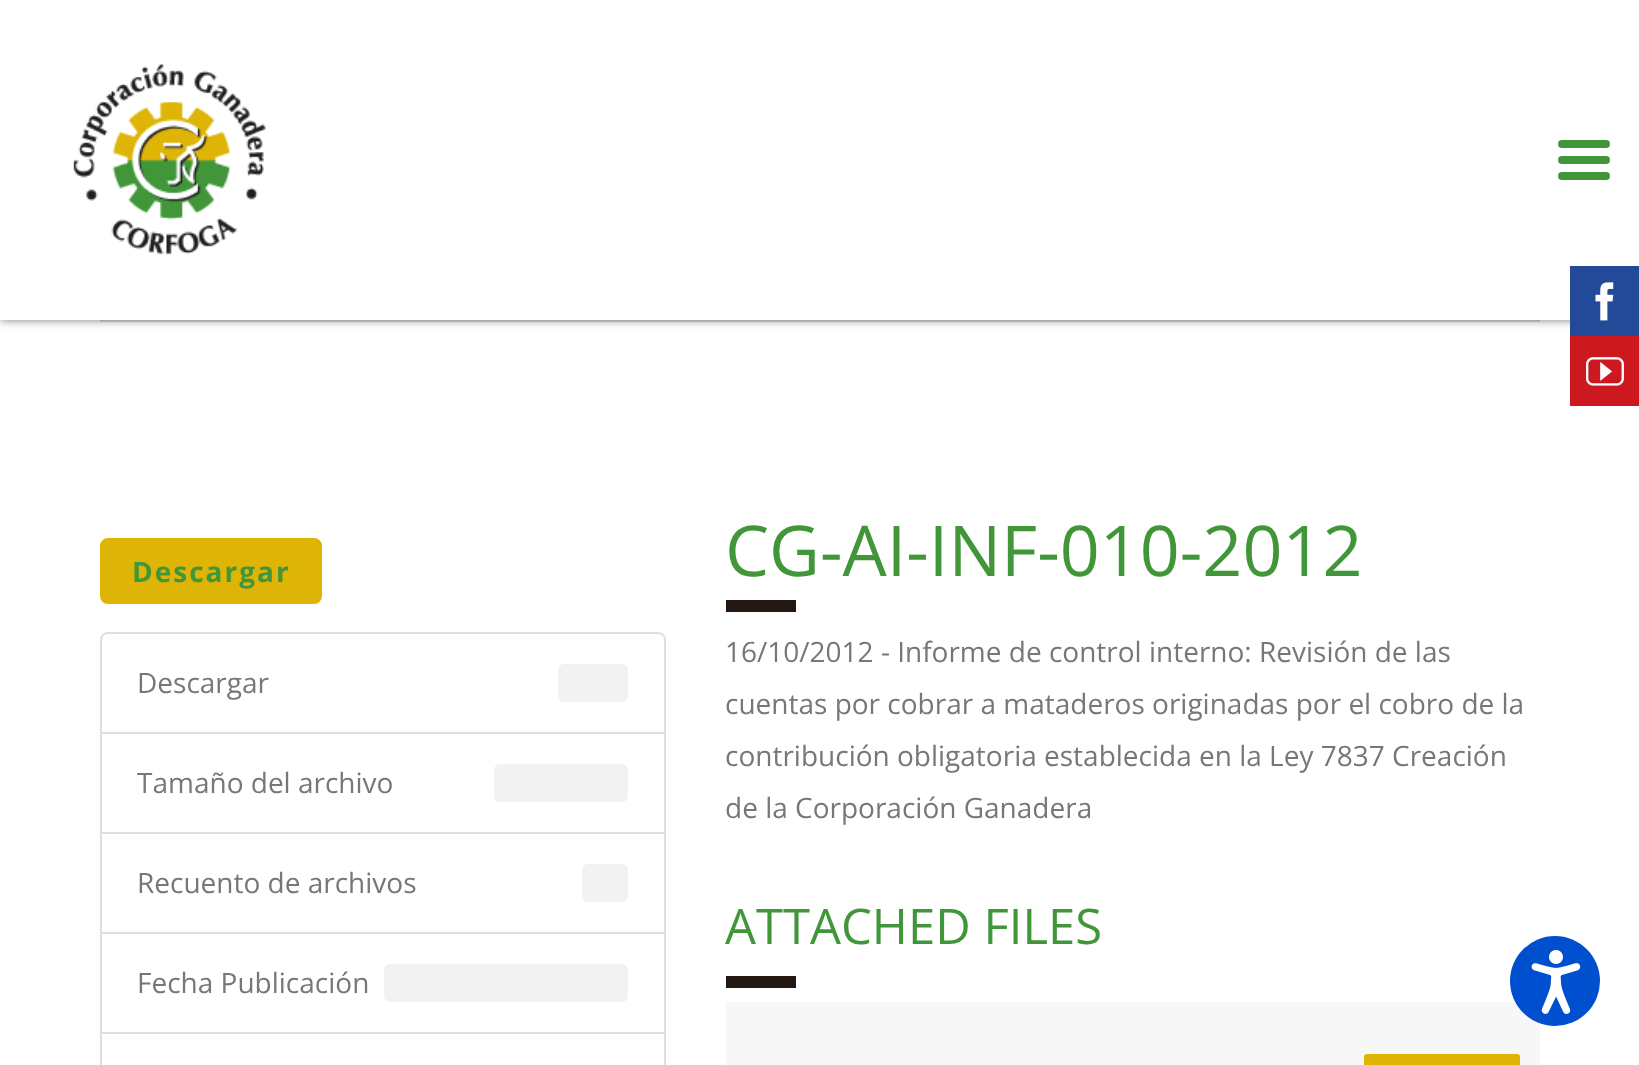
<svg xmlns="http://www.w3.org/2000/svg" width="1639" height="1065">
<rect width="100%" height="100%" fill="#fff"/>
<rect x="100" y="320" width="1440" height="2" fill="#ddd"/>
<rect width="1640" height="320" fill="#00000085" filter="blur(5px)"/>
<rect width="1639" height="320" fill="#fff"/>
<rect x="1570" y="266" width="69" height="70" fill="#234999"/>
<image x="1595" y="282" width="19" height="39" href="media/1.png"/>
<rect x="1570" y="336" width="69" height="70" fill="#cd181f"/>
<image x="1586" y="357" width="38" height="29" href="media/2.png"/>
<image x="73" y="64" width="193" height="191" href="media/3.png"/>
<rect x="1558" y="156" width="52" height="8" rx="4" fill="#419639"/>
<rect x="1558" y="140" width="52" height="8" rx="4" fill="#419639"/>
<rect x="1558" y="172" width="52" height="8" rx="4" fill="#419639"/>
<rect x="101" y="539" width="220" height="64" rx="7" fill="#deb406" stroke="#deb406" stroke-width="2"/>
<text x="132" y="582" style="font-family:Open Sans;font-size:28px;font-weight:bold;letter-spacing:2px;fill:#419639">Descargar</text>
<path d="M108 633h550c4 0 7 3 7 7v93h-564v-93c0-4 3-7 7-7z" fill="none" stroke="#dfdfdf" stroke-width="2"/>
<text x="137" y="693" style="font-family:Open Sans;font-size:28px;fill:#777">Descargar</text>
<rect x="558" y="664" width="70" height="38" rx="6" fill="#f2f2f2"/>
<rect x="101" y="733" width="564" height="100" fill="none" stroke="#dfdfdf" stroke-width="2"/>
<text x="137" y="793" style="font-family:Open Sans;font-size:28px;fill:#777">Tamaño del archivo</text>
<rect x="494" y="764" width="134" height="38" rx="6" fill="#f2f2f2"/>
<rect x="101" y="833" width="564" height="100" fill="none" stroke="#dfdfdf" stroke-width="2"/>
<text x="137" y="893" style="font-family:Open Sans;font-size:28px;fill:#777">Recuento de archivos</text>
<rect x="582" y="864" width="46" height="38" rx="6" fill="#f2f2f2"/>
<rect x="101" y="933" width="564" height="100" fill="none" stroke="#dfdfdf" stroke-width="2"/>
<text x="137" y="993" style="font-family:Open Sans;font-size:28px;fill:#777">Fecha Publicación</text>
<rect x="384" y="964" width="244" height="38" rx="6" fill="#f2f2f2"/>
<rect x="101" y="1033" width="564" height="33" fill="none" stroke="#dfdfdf" stroke-width="2"/>
<text x="725" y="576" style="font-family:Open Sans;font-size:70px;fill:#419639">CG-AI-INF-010-2012</text>
<rect x="726" y="600" width="70" height="12" fill="#221811"/>
<text x="725" y="662" style="font-family:Open Sans;font-size:28px;fill:#777">16/10/2012 - Informe de control interno: Revisión de las</text>
<text x="725" y="714" style="font-family:Open Sans;font-size:28px;fill:#777">cuentas por cobrar a mataderos originadas por el cobro de la</text>
<text x="725" y="766" style="font-family:Open Sans;font-size:28px;fill:#777">contribución obligatoria establecida en la Ley 7837 Creación</text>
<text x="725" y="818" style="font-family:Open Sans;font-size:28px;fill:#777">de la Corporación Ganadera</text>
<text x="725" y="944" style="font-family:Open Sans;font-size:49px;fill:#419639">ATTACHED FILES</text>
<rect x="726" y="976" width="70" height="12" fill="#221811"/>
<rect x="726" y="1002" width="814" height="63" fill="#f7f7f7"/>
<rect x="1365" y="1055" width="154" height="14" rx="2" fill="#deb406" stroke="#deb406" stroke-width="2"/>
<circle cx="1555" cy="981" r="45" fill="#004fce"/>
<image x="1531" y="950" width="50" height="64" href="media/4.png"/>
</svg>
